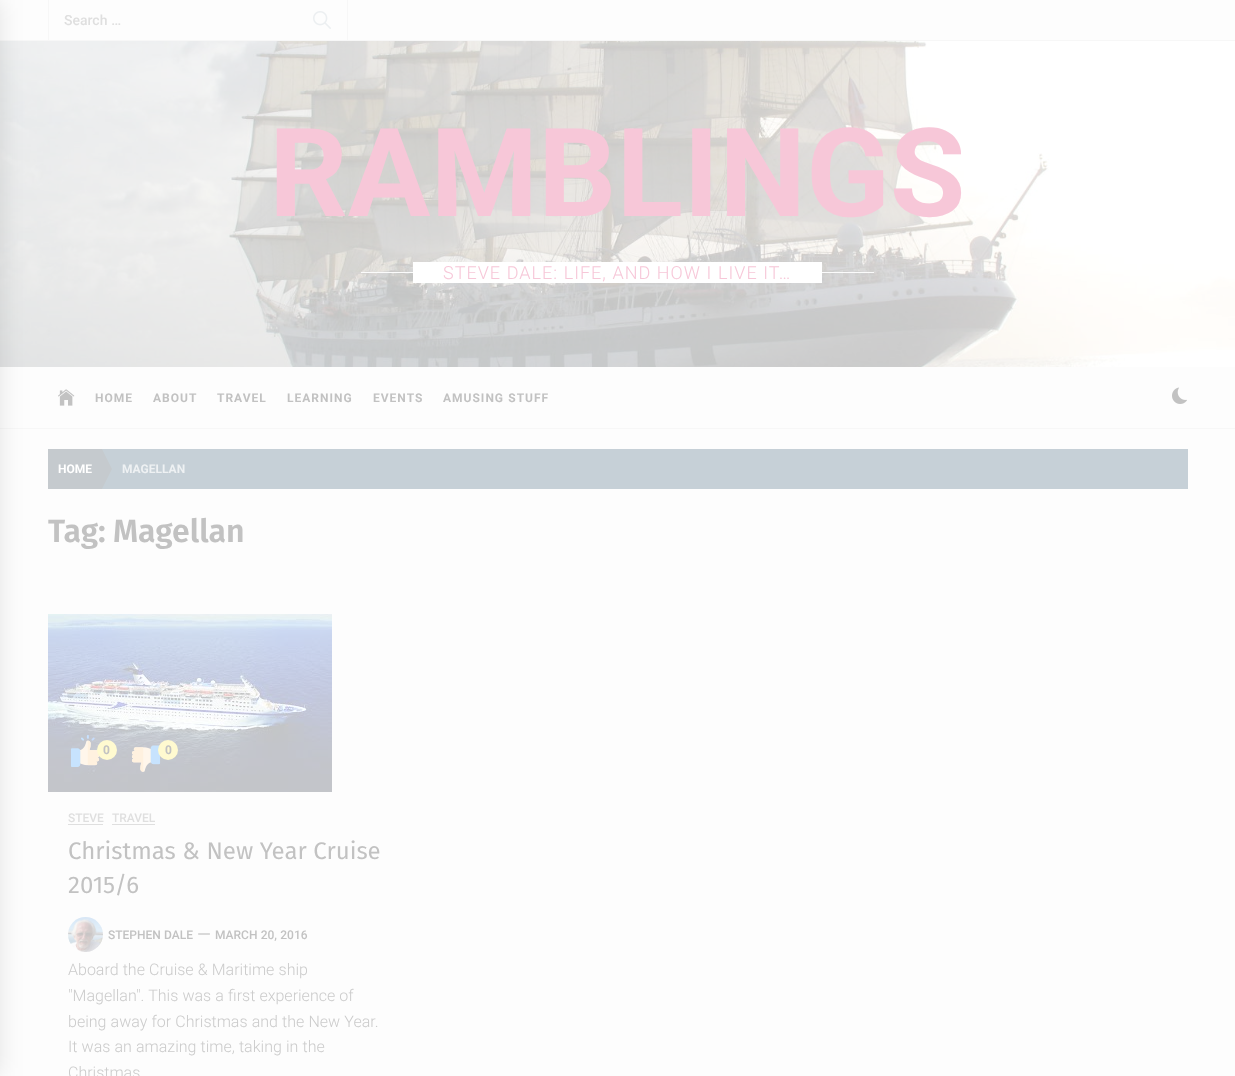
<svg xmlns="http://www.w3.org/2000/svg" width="1235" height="1076">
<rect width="100%" height="100%" fill="#fdfdfd"/>
<image x="0" y="41" width="1235" height="326" href="media/1.png"/>
<rect y="40" width="1235" height="1" fill="#f7f7f7"/>
<rect y="428" width="1235" height="1" fill="#f7f7f7"/>
<rect x="-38" width="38" height="1076" fill="#0000001a" filter="blur(12.5px)"/>
<rect x="347" width="1" height="40" fill="#f7f7f7"/>
<rect x="48" width="1" height="40" fill="#f7f7f7"/>
<text x="64" y="25" word-spacing="0.25" style="font-family:Roboto;font-size:14px;font-weight:500;fill:#dfdfdf">Search …</text>
<image x="313" y="11" width="18" height="18" href="media/2.png"/>
<text x="269" y="216" style="font-family:Roboto;font-size:123px;font-weight:bold;fill:#f7c7d8">RAMBLINGS</text>
<rect x="361" y="272" width="513" height="1" fill="#fbfbfb"/>
<rect x="413" y="262" width="409" height="21" fill="#fff"/>
<text x="443" y="279" word-spacing="0.25" style="font-family:Roboto;font-size:18px;font-weight:300;letter-spacing:1px;fill:#f7c7d8">STEVE DALE: LIFE, AND HOW I LIVE IT…</text>
<image x="58" y="389" width="17" height="17" href="media/3.png"/>
<text x="95" y="402" style="font-family:Roboto;font-size:12px;font-weight:bold;letter-spacing:1px;fill:#c2c2c2">HOME</text>
<text x="153" y="402" style="font-family:Roboto;font-size:12px;font-weight:bold;letter-spacing:1px;fill:#c2c2c2">ABOUT</text>
<text x="217" y="402" style="font-family:Roboto;font-size:12px;font-weight:bold;letter-spacing:1px;fill:#c2c2c2">TRAVEL</text>
<text x="287" y="402" style="font-family:Roboto;font-size:12px;font-weight:bold;letter-spacing:1px;fill:#c2c2c2">LEARNING</text>
<text x="373" y="402" style="font-family:Roboto;font-size:12px;font-weight:bold;letter-spacing:1px;fill:#c2c2c2">EVENTS</text>
<text x="443" y="402" word-spacing="0.25" style="font-family:Roboto;font-size:12px;font-weight:bold;letter-spacing:1px;fill:#c2c2c2">AMUSING STUFF</text>
<image x="1172" y="387" width="15" height="17" href="media/4.png"/>
<rect x="102" y="449" width="1086" height="40" fill="#c6d0d7"/>
<rect x="48" y="449" width="54" height="40" fill="#c5cace"/>
<text x="58" y="473" style="font-family:Roboto;font-size:12px;font-weight:bold;fill:#fff">HOME</text>
<path d="M102 489v-40l10 20z" fill="#c5cace"/>
<text x="122" y="473" style="font-family:Roboto;font-size:12px;font-weight:bold;fill:#eef1f3">MAGELLAN</text>
<text x="48" y="542" style="font-family:Fira Sans;font-size:32px;font-weight:600;fill:#c2c2c2">Tag:</text>
<text x="113" y="542" style="font-family:Fira Sans;font-size:32px;font-weight:600;fill:#c2c2c2">Magellan</text>
<image x="48" y="614" width="284" height="178" href="media/5.png"/>
<image x="70" y="735" width="30" height="32" href="media/6.png"/>
<circle cx="107" cy="750" r="10" fill="#fffad0"/>
<text x="103" y="754" style="font-family:Roboto;font-size:12px;font-weight:bold;fill:#c2c2c2">0</text>
<image x="131" y="745" width="30" height="27" href="media/7.png"/>
<circle cx="168" cy="750" r="10" fill="#fffad0"/>
<text x="165" y="754" style="font-family:Roboto;font-size:12px;font-weight:bold;fill:#c2c2c2">0</text>
<rect x="68" y="824" width="35" height="1" fill="#dfdfdf"/>
<text x="68" y="822" style="font-family:Roboto;font-size:12px;font-weight:500;fill:#dfdfdf">STEVE</text>
<rect x="112" y="824" width="43" height="1" fill="#dfdfdf"/>
<text x="112" y="822" style="font-family:Roboto;font-size:12px;font-weight:500;fill:#dfdfdf">TRAVEL</text>
<text x="68" y="859" word-spacing="0.25" style="font-family:Fira Sans;font-size:24px;fill:#c2c2c2">Christmas &amp; New Year Cruise</text>
<text x="68" y="893" style="font-family:Fira Sans;font-size:24px;fill:#c2c2c2">2015/6</text>
<image x="68" y="917" width="35" height="35" href="media/8.png"/>
<text x="108" y="939" word-spacing="0.25" style="font-family:Roboto;font-size:12px;font-weight:500;fill:#c2c2c2">STEPHEN DALE</text>
<image x="198" y="933" width="12" height="2" href="media/9.png"/>
<text x="215" y="939" word-spacing="0.25" style="font-family:Roboto;font-size:12px;font-weight:500;fill:#c2c2c2">MARCH 20, 2016</text>
<text x="68" y="975" word-spacing="0.25" style="font-family:Roboto;font-size:16px;font-weight:300;fill:#cbcbcb">Aboard the Cruise &amp; Maritime ship</text>
<text x="68" y="1001" word-spacing="0.25" style="font-family:Roboto;font-size:16px;font-weight:300;fill:#cbcbcb">"Magellan". This was a first experience of</text>
<text x="68" y="1027" word-spacing="0.25" style="font-family:Roboto;font-size:16px;font-weight:300;fill:#cbcbcb">being away for Christmas and the New Year.</text>
<text x="68" y="1052" word-spacing="0.25" style="font-family:Roboto;font-size:16px;font-weight:300;fill:#cbcbcb">It was an amazing time, taking in the</text>
<text x="68" y="1078" style="font-family:Roboto;font-size:16px;font-weight:300;fill:#cbcbcb">Christmas</text>
</svg>
